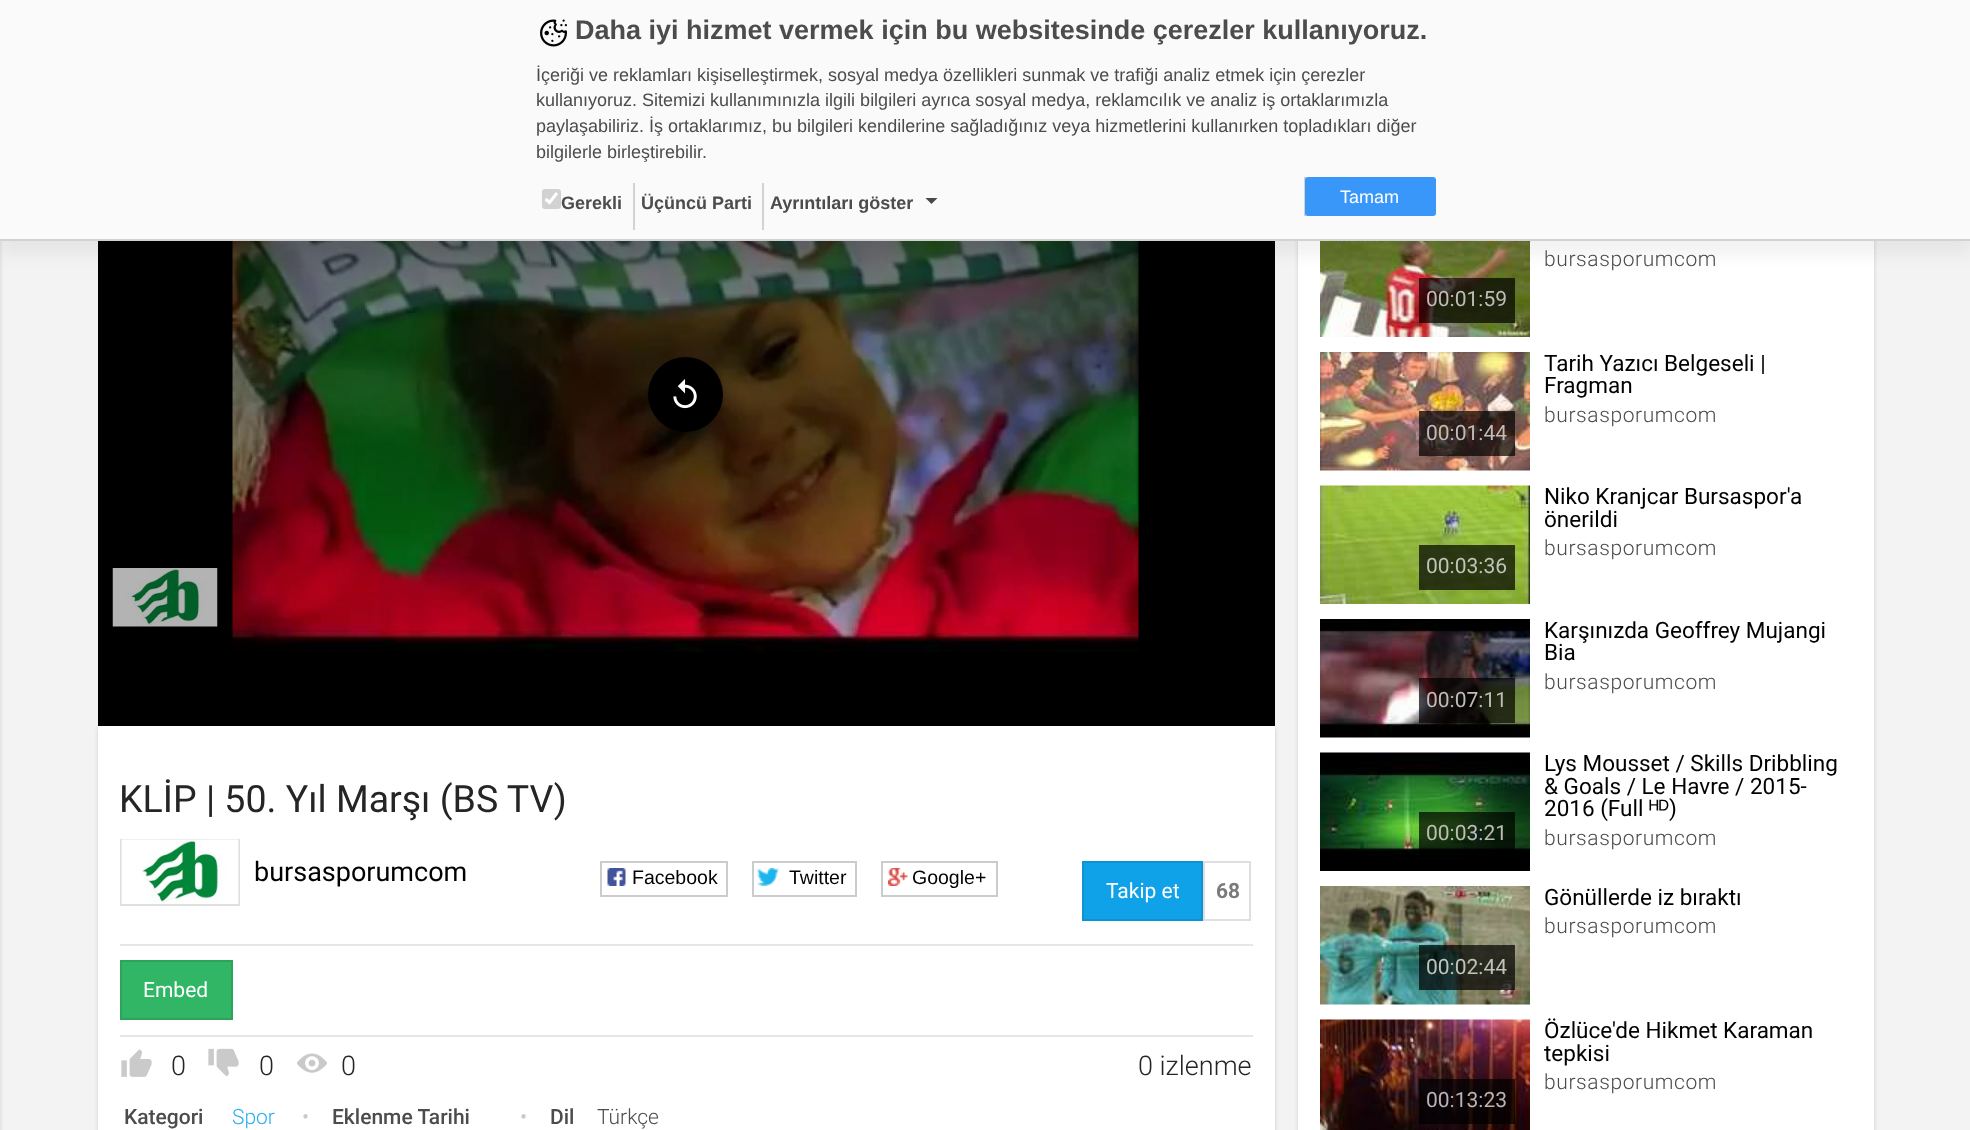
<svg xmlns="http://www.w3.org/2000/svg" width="1970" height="1130">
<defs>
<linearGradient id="g1" gradientUnits="userSpaceOnUse" x1="686" y1="63" x2="686" y2="726"><stop offset="0" stop-color="#000" stop-opacity="0.8"/><stop offset="1" stop-color="#000" stop-opacity="0"/></linearGradient>
</defs>
<rect width="100%" height="100%" fill="#f3f3f3"/>
<rect x="98" y="728" width="1177" height="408" fill="#00000026" filter="blur(2px)"/>
<rect x="98" y="241" width="1177" height="485" fill="#000"/>
<image x="232" y="241" width="907" height="411" href="media/2.png"/>
<rect x="232" y="241" width="907" height="401" fill="url(#g1)"/>
<rect x="1298" y="65" width="576" height="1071" fill="#00000026" filter="blur(2px)"/>
<rect x="1298" y="241" width="576" height="889" fill="#fff"/>
<image x="1320" y="241" width="210" height="96" href="media/12.png"/>
<rect x="1419" y="278" width="96" height="45" fill="#000000b3"/>
<rect y="15" width="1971" height="240" fill="#0000000d" filter="blur(7.5px)"/>
<rect x="-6" y="2" width="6" height="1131" fill="#00000026" filter="blur(2px)"/>
<rect width="1970" height="239" fill="#fafafa"/>
<rect y="239" width="1970" height="2" fill="#d2d2d2"/>
<image x="540" y="19" width="27" height="28" href="media/1.png"/>
<text x="575" y="39" style="font-family:Liberation Sans;font-size:27px;font-weight:bold;fill:#4c4c4c">Daha iyi hizmet vermek için bu websitesinde çerezler kullanıyoruz.</text>
<text x="536" y="81" style="font-family:Liberation Sans;font-size:18px;fill:#4c4c4c">İçeriği ve reklamları kişiselleştirmek, sosyal medya özellikleri sunmak ve trafiği analiz etmek için çerezler</text>
<text x="536" y="106" style="font-family:Liberation Sans;font-size:18px;fill:#4c4c4c">kullanıyoruz. Sitemizi kullanımınızla ilgili bilgileri ayrıca sosyal medya, reklamcılık ve analiz iş ortaklarımızla</text>
<text x="536" y="132" style="font-family:Liberation Sans;font-size:18px;fill:#4c4c4c">paylaşabiliriz. İş ortaklarımız, bu bilgileri kendilerine sağladığınız veya hizmetlerini kullanırken topladıkları diğer</text>
<text x="536" y="158" style="font-family:Liberation Sans;font-size:18px;fill:#4c4c4c">bilgilerle birleştirebilir.</text>
<rect x="542" y="189" width="19" height="20" rx="3" fill="#d2d2d2"/>
<path d="M545.5 199l4 3.5l7.5-9.5" fill="none" stroke="#fff" stroke-width="3.1"/>
<text x="561" y="209" style="font-family:Liberation Sans;font-size:18px;font-weight:bold;fill:#4c4c4c">Gerekli</text>
<rect x="633" y="183" width="2" height="47" fill="#d2d2d2"/>
<text x="641" y="209" style="font-family:Liberation Sans;font-size:18px;font-weight:bold;fill:#4c4c4c">Üçüncü Parti</text>
<rect x="762" y="183" width="2" height="47" fill="#d2d2d2"/>
<text x="770" y="209" style="font-family:Liberation Sans;font-size:18px;font-weight:bold;fill:#4c4c4c">Ayrıntıları göster</text>
<path d="M925.5 198h12l-6 6z" fill="#484848"/>
<rect x="1304" y="177" width="2" height="39" fill="#d2d2d2"/>
<rect x="1305" y="177" width="131" height="39" rx="3" fill="#3997fa"/>
<text x="1340" y="203" style="font-family:Liberation Sans;font-size:18px;fill:#fff">Tamam</text>
<circle cx="685.5" cy="394.5" r="37.5" fill="#000"/>
<image x="673" y="379" width="24" height="30" href="media/3.png"/>
<image x="112" y="568" width="106" height="59" href="media/4.png"/>
<rect x="98" y="726" width="1177" height="404" fill="#fff"/>
<text x="119" y="812" style="font-family:Roboto;font-size:37.5px;fill:#252525">KLİP | 50. Yıl Marşı (BS TV)</text>
<rect x="121" y="840" width="118" height="65" fill="none" stroke="#dfdfdf" stroke-width="2"/>
<image x="121" y="839" width="118" height="65" href="media/5.png"/>
<text x="254" y="881" style="font-family:Roboto;font-size:27px;fill:#000">bursasporumcom</text>
<rect x="601" y="862" width="126" height="34" fill="none" stroke="#ccc" stroke-width="2"/>
<image x="607" y="868" width="19" height="18" href="media/6.png"/>
<text x="632" y="884" style="font-family:Liberation Sans;font-size:19.5px;fill:#000">Facebook</text>
<rect x="753" y="862" width="103" height="34" fill="none" stroke="#ccc" stroke-width="2"/>
<image x="757" y="868" width="22" height="18" href="media/7.png"/>
<text x="789" y="884" style="font-family:Liberation Sans;font-size:19.5px;fill:#000">Twitter</text>
<rect x="882" y="862" width="115" height="34" fill="none" stroke="#ccc" stroke-width="2"/>
<image x="888" y="868" width="20" height="18" href="media/8.png"/>
<text x="912" y="884" style="font-family:Liberation Sans;font-size:19.5px;fill:#000">Google+</text>
<rect x="1083" y="862" width="119" height="58" fill="#10a2e8" stroke="#0f92d0" stroke-width="2"/>
<text x="1106" y="898" style="font-family:Roboto;font-size:21px;fill:#fff">Takip et</text>
<rect x="1204" y="862" width="46" height="58" fill="none" stroke="#dfdfdf" stroke-width="2"/>
<text x="1216" y="898" style="font-family:Roboto;font-size:21px;font-weight:bold;fill:#7b7b7b">68</text>
<rect x="120" y="944" width="1133" height="2" fill="#e6e6e6"/>
<rect x="121" y="961" width="111" height="58" fill="#31b666" stroke="#2ca25b" stroke-width="2"/>
<text x="143" y="997" style="font-family:Roboto;font-size:21px;fill:#fff">Embed</text>
<rect x="120" y="1035" width="1133" height="2" fill="#e6e6e6"/>
<image x="121" y="1049" width="31" height="28" href="media/9.png"/>
<text x="171" y="1075" style="font-family:Roboto;font-size:27px;font-weight:300;fill:#252525">0</text>
<image x="208" y="1048" width="31" height="29" href="media/10.png"/>
<text x="259" y="1075" style="font-family:Roboto;font-size:27px;font-weight:300;fill:#252525">0</text>
<image x="297" y="1053" width="30" height="20" href="media/11.png"/>
<text x="341" y="1075" style="font-family:Roboto;font-size:27px;font-weight:300;fill:#252525">0</text>
<text x="1138" y="1075" style="font-family:Roboto;font-size:27px;font-weight:300;fill:#252525">0 izlenme</text>
<text x="124" y="1124" style="font-family:Roboto;font-size:21px;font-weight:500;fill:#4c4c4c">Kategori</text>
<text x="232" y="1124" style="font-family:Roboto;font-size:21px;font-weight:300;fill:#29b0f0">Spor</text>
<text x="302" y="1124" style="font-family:Roboto;font-size:21px;fill:#cacaca">•</text>
<text x="332" y="1124" style="font-family:Roboto;font-size:21px;font-weight:500;fill:#4c4c4c">Eklenme Tarihi</text>
<text x="520" y="1124" style="font-family:Roboto;font-size:21px;fill:#cacaca">•</text>
<text x="550" y="1124" style="font-family:Roboto;font-size:21px;font-weight:500;fill:#4c4c4c">Dil</text>
<text x="597" y="1124" style="font-family:Roboto;font-size:21px;font-weight:300;fill:#4c4c4c">Türkçe</text>
<text x="1544" y="266" style="font-family:Roboto;font-size:21px;font-weight:300;letter-spacing:0.6px;fill:#4c4c4c">bursasporumcom</text>
<text x="1426" y="306" style="font-family:Roboto;font-size:21px;fill:#bdbcb7">00:01:59</text>
<text x="1544" y="371" style="font-family:Roboto;font-size:22.5px;fill:#000">Tarih Yazıcı Belgeseli |</text>
<text x="1544" y="393" style="font-family:Roboto;font-size:22.5px;fill:#000">Fragman</text>
<text x="1544" y="422" style="font-family:Roboto;font-size:21px;font-weight:300;letter-spacing:0.6px;fill:#4c4c4c">bursasporumcom</text>
<image x="1320" y="352" width="210" height="119" href="media/13.png"/>
<rect x="1419" y="411" width="96" height="45" fill="#000000b3"/>
<text x="1426" y="440" style="font-family:Roboto;font-size:21px;fill:#bdbcb7">00:01:44</text>
<text x="1544" y="504" style="font-family:Roboto;font-size:22.5px;fill:#000">Niko Kranjcar Bursaspor'a</text>
<text x="1544" y="527" style="font-family:Roboto;font-size:22.5px;fill:#000">önerildi</text>
<text x="1544" y="555" style="font-family:Roboto;font-size:21px;font-weight:300;letter-spacing:0.6px;fill:#4c4c4c">bursasporumcom</text>
<image x="1320" y="485" width="210" height="119" href="media/14.png"/>
<rect x="1419" y="545" width="96" height="45" fill="#000000b3"/>
<text x="1426" y="573" style="font-family:Roboto;font-size:21px;fill:#bfc3b8">00:03:36</text>
<text x="1544" y="638" style="font-family:Roboto;font-size:22.5px;fill:#000">Karşınızda Geoffrey Mujangi</text>
<text x="1544" y="660" style="font-family:Roboto;font-size:22.5px;fill:#000">Bia</text>
<text x="1544" y="689" style="font-family:Roboto;font-size:21px;font-weight:300;letter-spacing:0.6px;fill:#4c4c4c">bursasporumcom</text>
<image x="1320" y="619" width="210" height="119" href="media/15.png"/>
<rect x="1419" y="678" width="96" height="45" fill="#000000b3"/>
<text x="1426" y="707" style="font-family:Roboto;font-size:21px;fill:#bdbcb7">00:07:11</text>
<image x="1320" y="752" width="210" height="119" href="media/16.png"/>
<rect x="1419" y="812" width="96" height="42" fill="#000000b3"/>
<text x="1426" y="840" style="font-family:Roboto;font-size:21px;fill:#bdbcb7">00:03:21</text>
<text x="1544" y="771" style="font-family:Roboto;font-size:22.5px;fill:#000">Lys Mousset / Skills Dribbling</text>
<text x="1544" y="794" style="font-family:Roboto;font-size:22.5px;fill:#000">&amp; Goals / Le Havre / 2015-</text>
<text x="1544" y="816" style="font-family:Roboto;font-size:22.5px;fill:#000">2016 (Full</text>
<text x="1649" y="816" style="font-family:Liberation Sans;font-size:22.5px;fill:#000">ᴴᴰ</text>
<text x="1669" y="816" style="font-family:Roboto;font-size:22.5px;fill:#000">)</text>
<text x="1544" y="845" style="font-family:Roboto;font-size:21px;font-weight:300;letter-spacing:0.6px;fill:#4c4c4c">bursasporumcom</text>
<text x="1544" y="905" style="font-family:Roboto;font-size:22.5px;fill:#000">Gönüllerde iz bıraktı</text>
<text x="1544" y="933" style="font-family:Roboto;font-size:21px;font-weight:300;letter-spacing:0.6px;fill:#4c4c4c">bursasporumcom</text>
<image x="1320" y="886" width="210" height="119" href="media/17.png"/>
<rect x="1419" y="945" width="96" height="45" fill="#000000b3"/>
<text x="1426" y="974" style="font-family:Roboto;font-size:21px;fill:#bfc3b8">00:02:44</text>
<text x="1544" y="1038" style="font-family:Roboto;font-size:22.5px;fill:#000">Özlüce'de Hikmet Karaman</text>
<text x="1544" y="1061" style="font-family:Roboto;font-size:22.5px;fill:#000">tepkisi</text>
<text x="1544" y="1089" style="font-family:Roboto;font-size:21px;font-weight:300;letter-spacing:0.6px;fill:#4c4c4c">bursasporumcom</text>
<image x="1320" y="1019" width="210" height="111" href="media/18.png"/>
<rect x="1419" y="1079" width="96" height="45" fill="#000000b3"/>
<text x="1426" y="1107" style="font-family:Roboto;font-size:21px;fill:#b7b4b5">00:13:23</text>
</svg>
